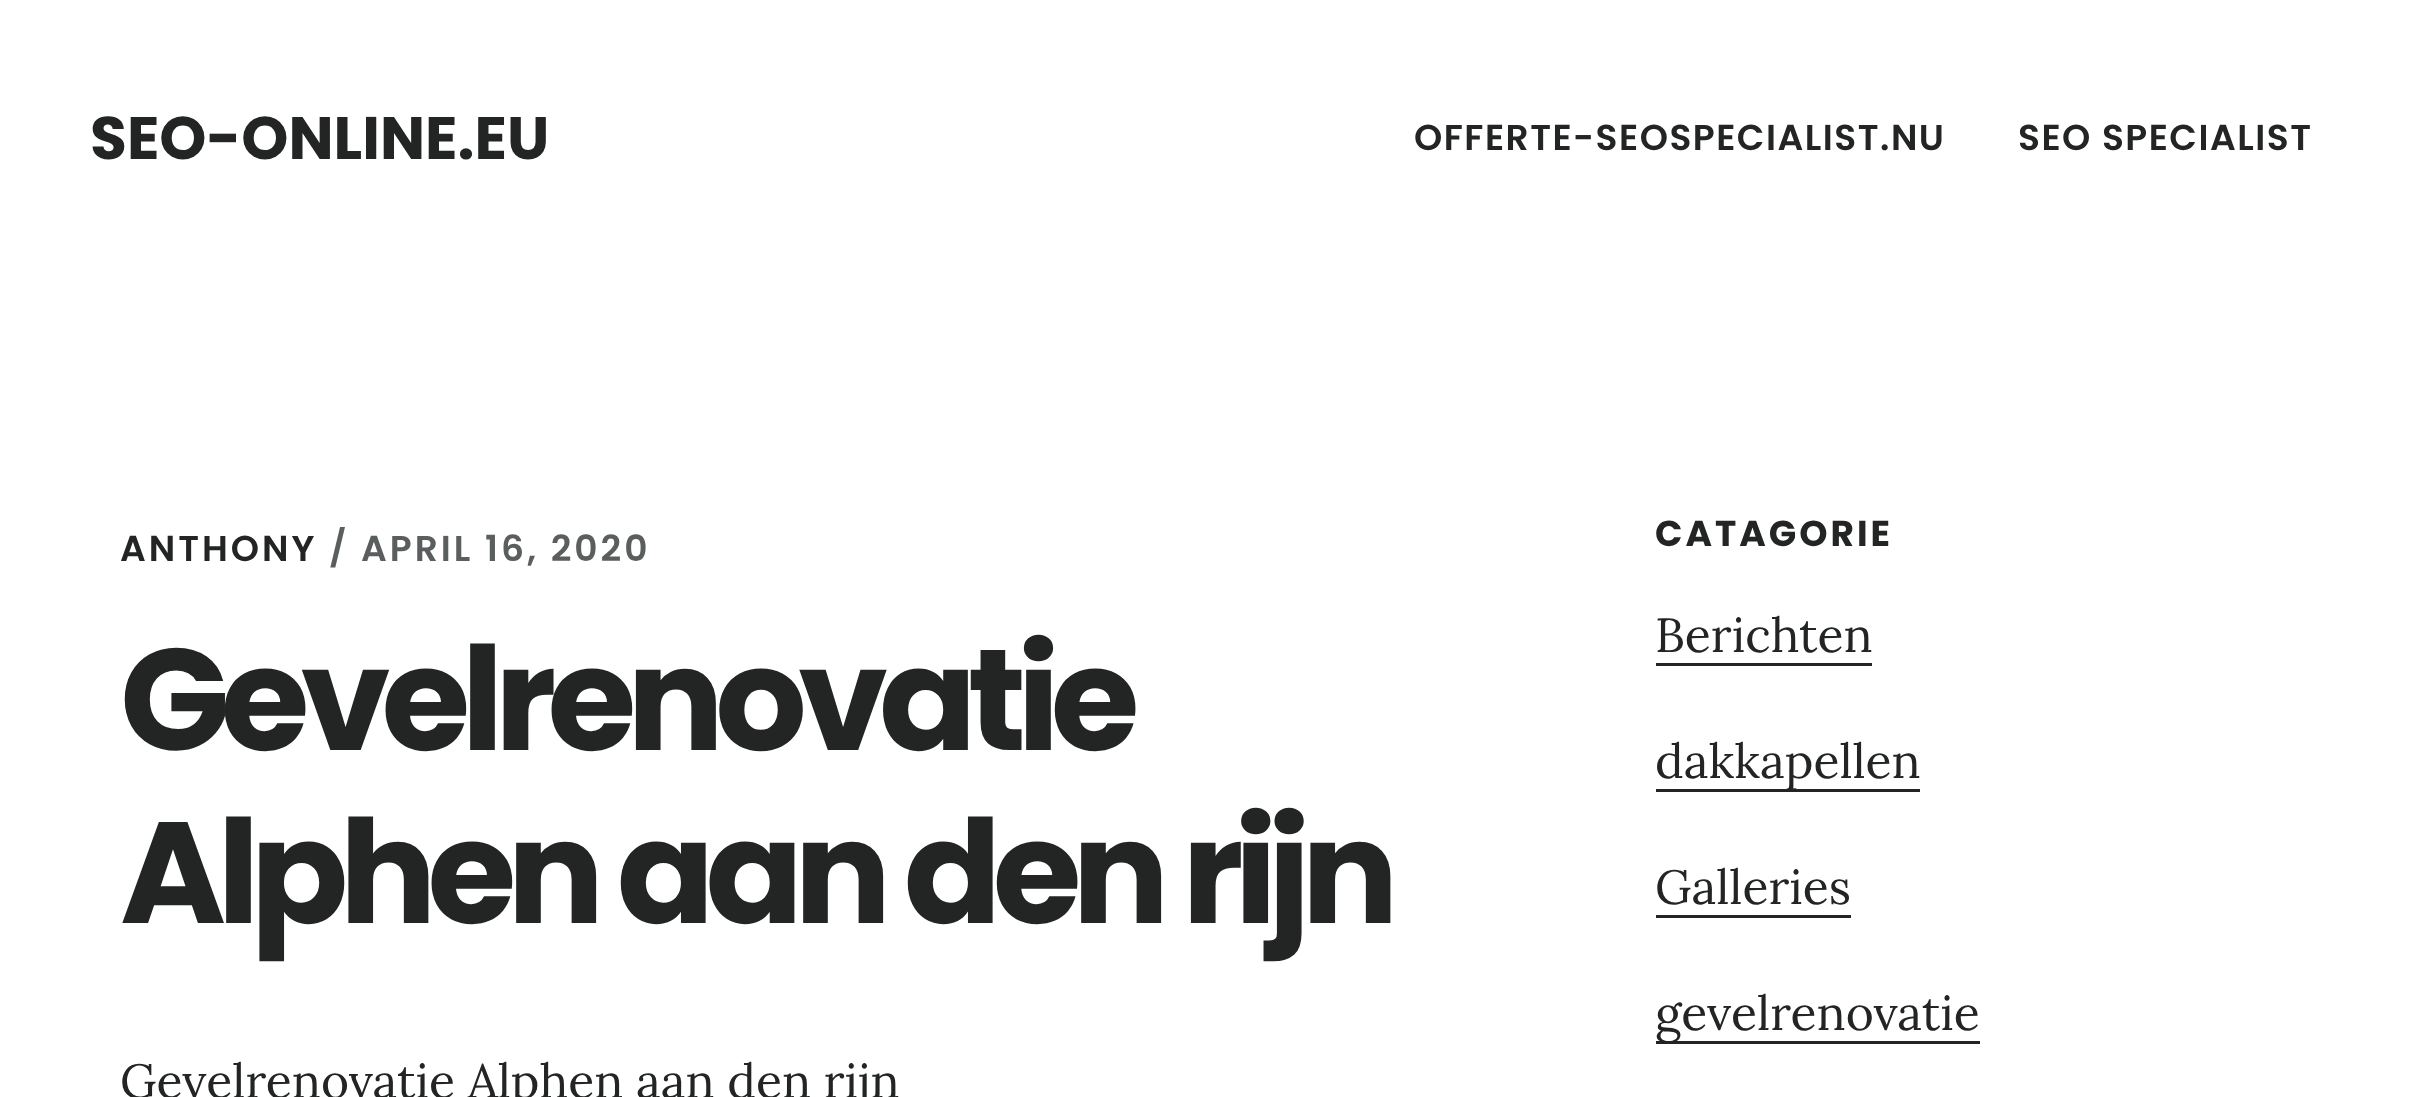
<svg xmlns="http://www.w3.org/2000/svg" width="2433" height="1097">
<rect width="100%" height="100%" fill="#fff"/>
<text x="90" y="159" style="font-family:Poppins;font-size:60px;font-weight:bold;fill:#232525">SEO-ONLINE.EU</text>
<text x="1414" y="150" style="font-family:Poppins;font-size:36px;font-weight:600;letter-spacing:1.5px;fill:#232525">OFFERTE-SEOSPECIALIST.NU</text>
<text x="2018" y="150" style="font-family:Poppins;font-size:36px;font-weight:600;letter-spacing:1.5px;fill:#232525">SEO SPECIALIST</text>
<text x="120" y="561" style="font-family:Poppins;font-size:36px;font-weight:600;letter-spacing:3px;fill:#232525">ANTHONY</text>
<text x="329" y="561" style="font-family:Poppins;font-size:36px;font-weight:600;letter-spacing:3px;fill:#5b5e5e">/ APRIL 16, 2020</text>
<text x="120" y="750" style="font-family:Poppins;font-size:144px;font-weight:bold;letter-spacing:-9px;fill:#232525">Gevelrenovatie</text>
<text x="120" y="923" style="font-family:Poppins;font-size:144px;font-weight:bold;letter-spacing:-9px;fill:#232525">Alphen aan den rijn</text>
<text x="120" y="1098" style="font-family:Lora;font-size:48px;fill:#232525">Gevelrenovatie Alphen aan den rijn</text>
<text x="1655" y="546" style="font-family:Poppins;font-size:36px;font-weight:bold;letter-spacing:3px;fill:#232525">CATAGORIE</text>
<text x="1655" y="652" style="font-family:Lora;font-size:48px;fill:#232525">Berichten</text>
<rect x="1656" y="663" width="216" height="3" fill="#232525"/>
<rect x="1656" y="789" width="264" height="3" fill="#232525"/>
<text x="1655" y="778" style="font-family:Lora;font-size:48px;fill:#232525">dakkapellen</text>
<text x="1655" y="904" style="font-family:Lora;font-size:48px;fill:#232525">Galleries</text>
<rect x="1656" y="915" width="195" height="3" fill="#232525"/>
<rect x="1656" y="1041" width="324" height="3" fill="#232525"/>
<text x="1655" y="1030" style="font-family:Lora;font-size:48px;fill:#232525">gevelrenovatie</text>
</svg>
